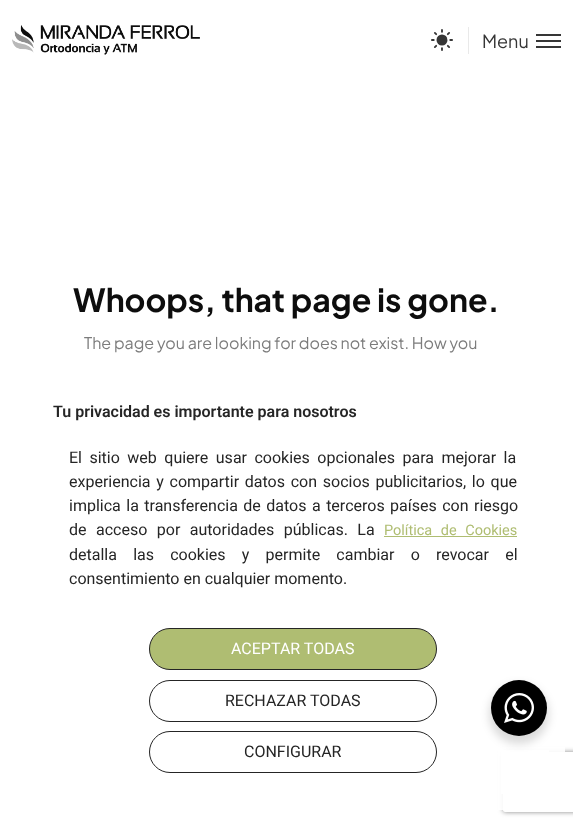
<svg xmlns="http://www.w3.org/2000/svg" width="573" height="826">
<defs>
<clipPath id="clip1"><path d="M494 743h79v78h-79zm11 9h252c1 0 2 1 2 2v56c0 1-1 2-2 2h-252c-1 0-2-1-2-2v-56c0-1 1-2 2-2z" clip-rule="evenodd"/></clipPath>
</defs>
<rect width="100%" height="100%" fill="#fff"/>
<image x="12" y="25" width="188" height="30" href="media/1.png"/>
<image x="431" y="29" width="22" height="22" href="media/2.png"/>
<rect x="468" y="27" width="1" height="27" fill="#e9e9e9"/>
<text x="482" y="48" style="font-family:Plus Jakarta Sans;font-size:18px;fill:#363636">Menu</text>
<rect x="536" y="40" width="25" height="2" fill="#363636"/>
<rect x="536" y="34" width="25" height="2" fill="#363636"/>
<rect x="536" y="46" width="25" height="2" fill="#363636"/>
<text x="73" y="312" style="font-family:Plus Jakarta Sans;font-size:32px;font-weight:bold;fill:#0d0d0d">Whoops, that page is gone.</text>
<text x="84" y="349" style="font-family:Plus Jakarta Sans;font-size:16px;fill:#7c7c7c">The page you are looking for does not exist. How you</text>
<g clip-path="url(#clip1)">
<rect x="503" y="752" width="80" height="60" rx="2" fill="#868686" filter="blur(2.5px)"/>
</g>
<rect x="498" y="747" width="67" height="63" fill="#ffffffe6"/>
<rect x="501" y="750" width="48" height="44" fill="#ffffffe6"/>
<text x="53" y="417" style="font-family:Roboto;font-size:16px;font-weight:600;fill:#252525">Tu privacidad es importante para nosotros</text>
<text x="69" y="463" word-spacing="3.5" style="font-family:Roboto;font-size:16px;fill:#252525">El sitio web quiere usar cookies opcionales para mejorar la</text>
<text x="69" y="487" word-spacing="1.75" style="font-family:Roboto;font-size:16px;fill:#252525">experiencia y compartir datos con socios publicitarios, lo que</text>
<text x="69" y="511" word-spacing="1.5" style="font-family:Roboto;font-size:16px;fill:#252525">implica la transferencia de datos a terceros países con riesgo</text>
<text x="69" y="535" word-spacing="5.5" style="font-family:Roboto;font-size:16px;fill:#252525">de acceso por autoridades públicas. La</text>
<text x="384" y="535" word-spacing="5" style="font-family:Roboto;font-size:14.5px;fill:#afbd72">Política de Cookies</text>
<rect x="384" y="536" width="133" height="1" fill="#afbd72"/>
<text x="69" y="560" word-spacing="12.25" style="font-family:Roboto;font-size:16px;fill:#252525">detalla las cookies y permite cambiar o revocar el</text>
<text x="69" y="584" style="font-family:Roboto;font-size:16px;fill:#252525">consentimiento en cualquier momento.</text>
<rect x="149.5" y="628.5" width="287" height="41" rx="20.5" fill="#afbd72" stroke="#252525"/>
<text x="231" y="654" style="font-family:Roboto;font-size:16px;fill:#fff">ACEPTAR TODAS</text>
<rect x="149.5" y="680.5" width="287" height="41" rx="20.5" fill="none" stroke="#252525"/>
<text x="225" y="706" style="font-family:Roboto;font-size:16px;fill:#252525">RECHAZAR TODAS</text>
<rect x="149.5" y="731.5" width="287" height="41" rx="20.5" fill="none" stroke="#252525"/>
<text x="244" y="757" style="font-family:Roboto;font-size:16px;fill:#252525">CONFIGURAR</text>
<rect x="489" y="684" width="60" height="60" rx="30" fill="#00000024" filter="blur(4px)"/>
<circle cx="519" cy="708" r="28" fill="#000"/>
<image x="504" y="693" width="30" height="30" href="media/3.png"/>
</svg>
